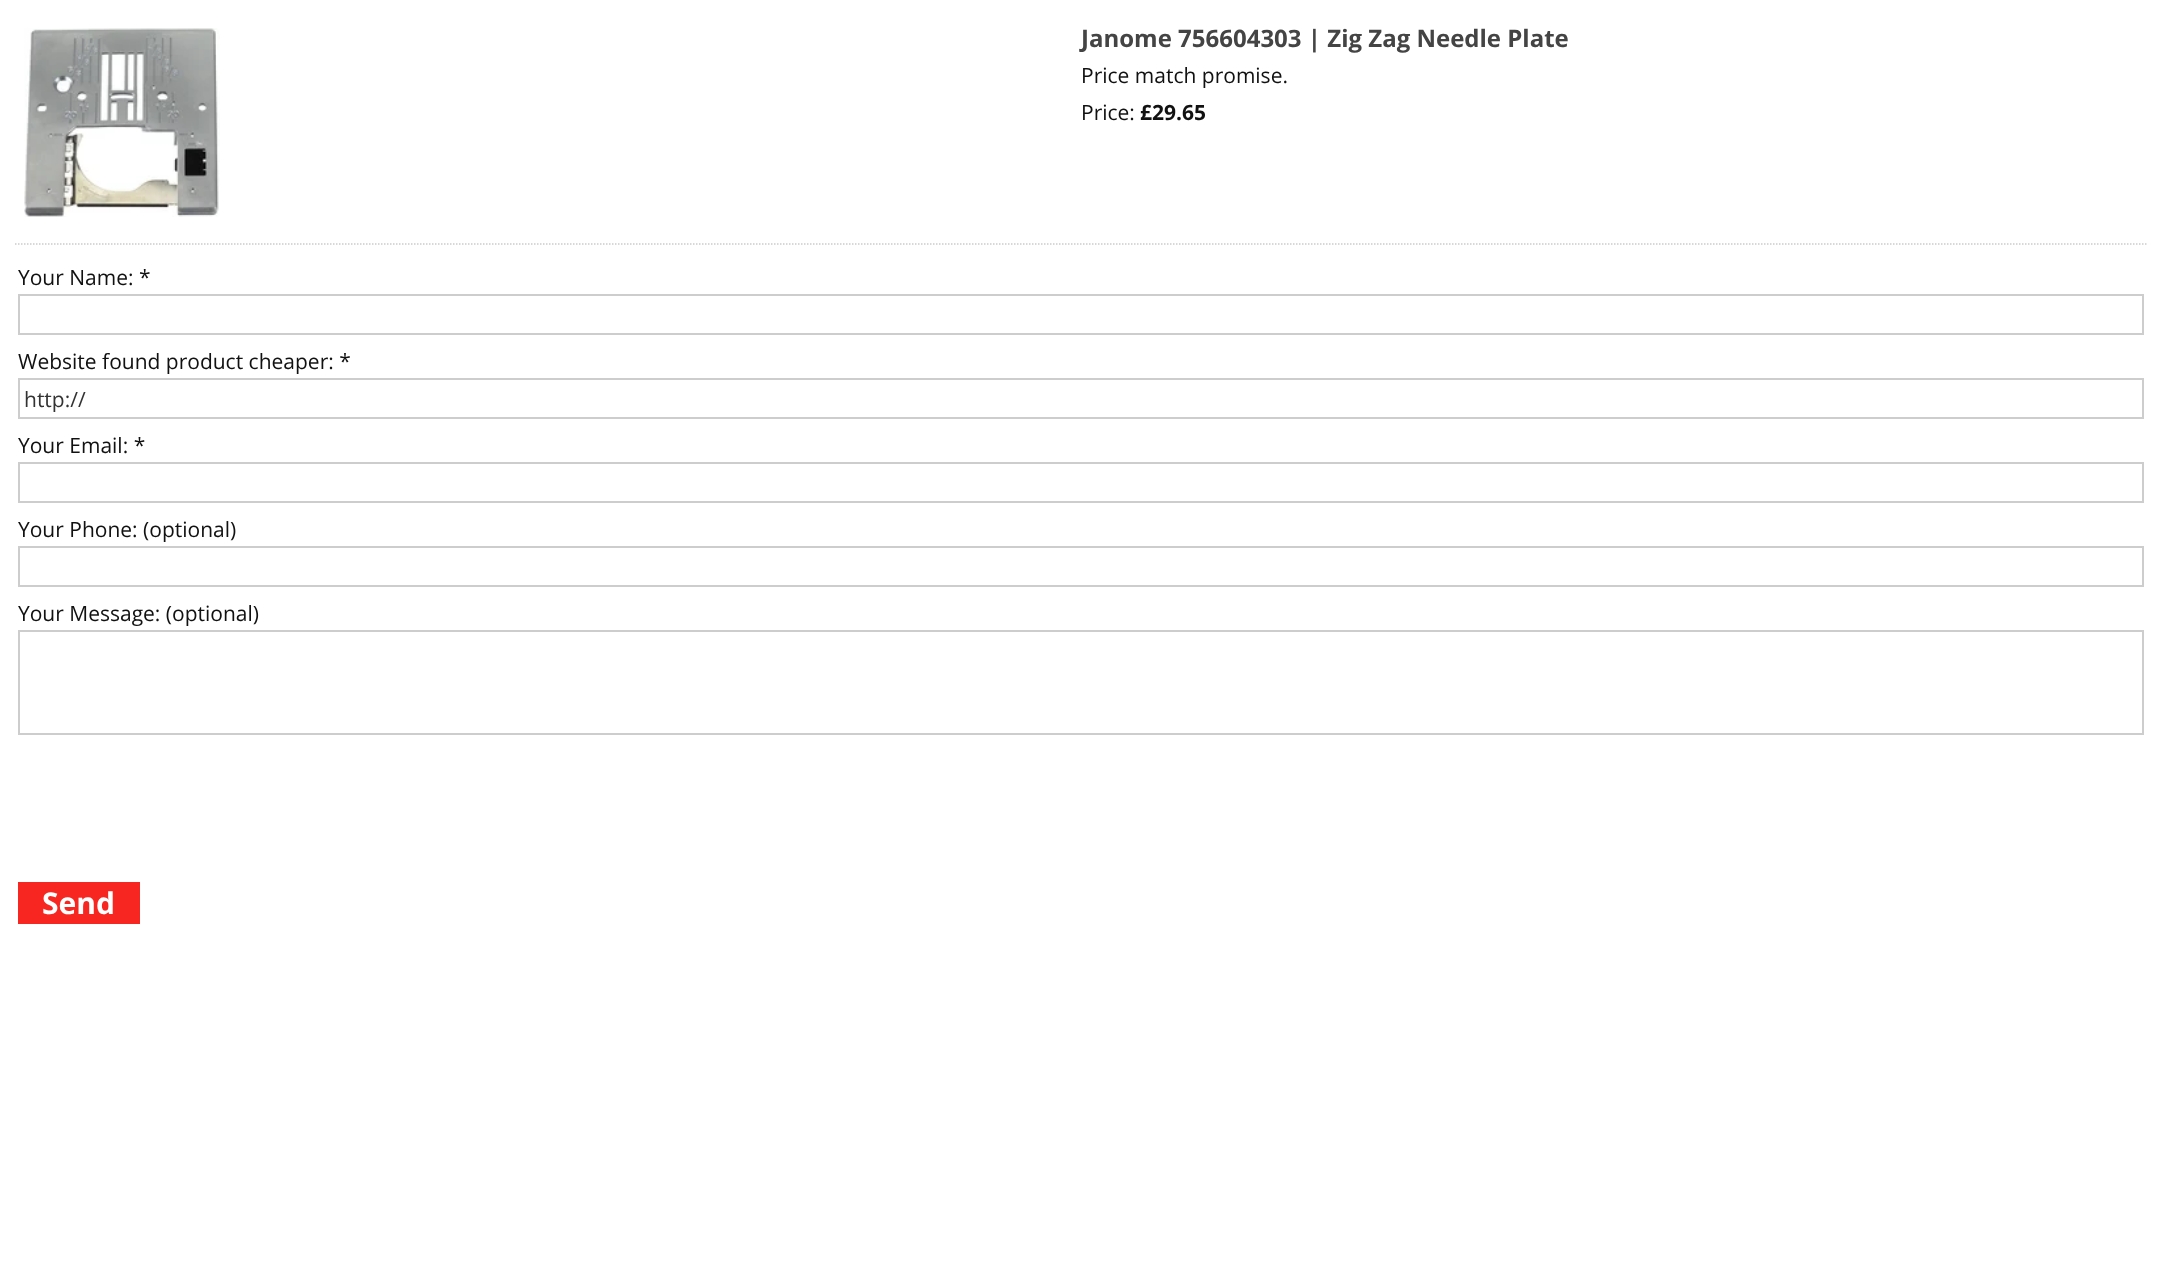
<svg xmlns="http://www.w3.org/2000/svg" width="2161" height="1277">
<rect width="100%" height="100%" fill="#fff"/>
<path d="M15 244h2131.5" fill="none" stroke="#ccc" stroke-width="1.5" stroke-dasharray="1.5 1.5"/>
<image x="24" y="28" width="196" height="189" href="media/1.png"/>
<text x="1081" y="47" style="font-family:Open Sans;font-size:24px;font-weight:bold;fill:#444">Janome 756604303 | Zig Zag Needle Plate</text>
<text x="1081" y="83" style="font-family:Open Sans;font-size:21px;fill:#111">Price match promise.</text>
<text x="1081" y="120" style="font-family:Open Sans;font-size:21px;fill:#111">Price:</text>
<text x="1140" y="120" style="font-family:Open Sans;font-size:21px;font-weight:bold;fill:#111">£29.65</text>
<text x="18" y="285" style="font-family:Open Sans;font-size:21px;fill:#111">Your Name: *</text>
<rect x="19" y="295" width="2124" height="39" fill="none" stroke="#cdcdcd" stroke-width="2"/>
<text x="18" y="369" style="font-family:Open Sans;font-size:21px;fill:#111">Website found product cheaper: *</text>
<rect x="19" y="379" width="2124" height="39" fill="none" stroke="#cdcdcd" stroke-width="2"/>
<text x="24" y="407" style="font-family:Open Sans;font-size:21px;fill:#333">http://</text>
<text x="18" y="453" style="font-family:Open Sans;font-size:21px;fill:#111">Your Email: *</text>
<rect x="19" y="463" width="2124" height="39" fill="none" stroke="#cdcdcd" stroke-width="2"/>
<text x="18" y="537" style="font-family:Open Sans;font-size:21px;fill:#111">Your Phone: (optional)</text>
<rect x="19" y="547" width="2124" height="39" fill="none" stroke="#cdcdcd" stroke-width="2"/>
<text x="18" y="621" style="font-family:Open Sans;font-size:21px;fill:#111">Your Message: (optional)</text>
<rect x="19" y="631" width="2124" height="103" fill="none" stroke="#cdcdcd" stroke-width="2"/>
<rect x="18" y="882" width="122" height="42" fill="#f72621"/>
<text x="42" y="914" style="font-family:Open Sans;font-size:30px;font-weight:bold;fill:#fff">Send</text>
</svg>
